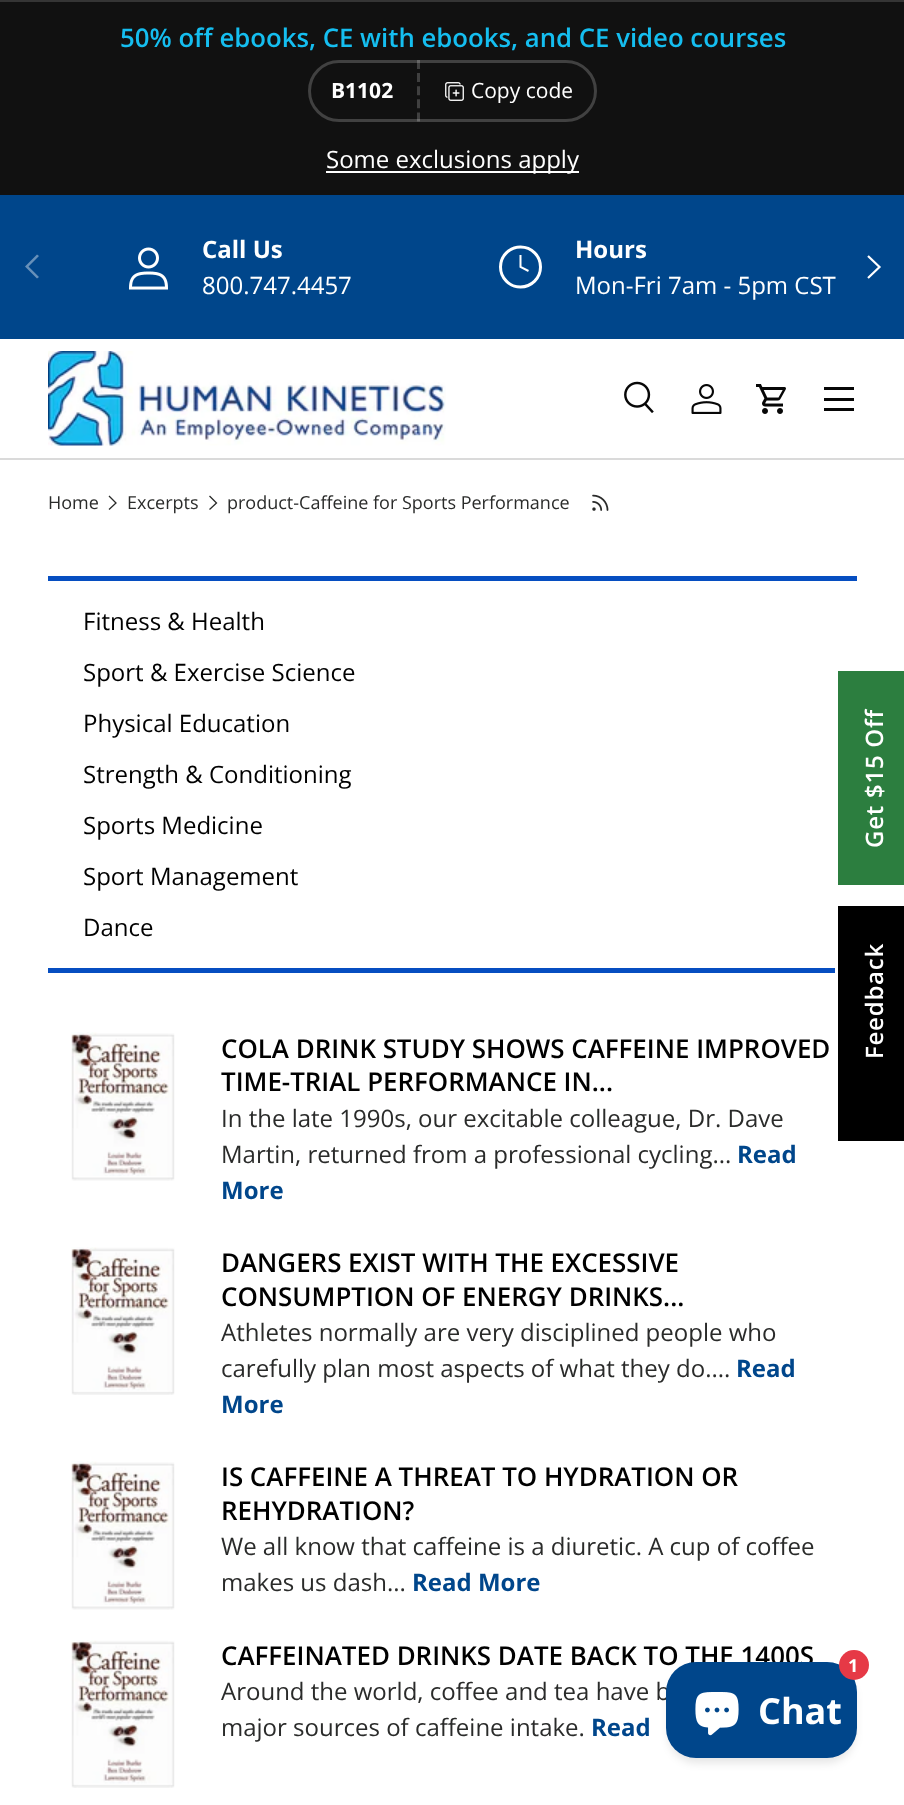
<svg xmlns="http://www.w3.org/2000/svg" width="904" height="1805">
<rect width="100%" height="100%" fill="#fff"/>
<rect y="2" width="904" height="193" fill="#111"/>
<rect width="904" height="2" fill="#353535"/>
<text x="120" y="47" style="font-family:Open Sans;font-size:25.75px;font-weight:600;fill:#15bef0">50% off ebooks, CE with ebooks, and CE video courses</text>
<rect x="309.5" y="61.5" width="286" height="59" rx="29.5" fill="none" stroke="#414141" stroke-width="3"/>
<text x="331" y="98" style="font-family:Open Sans;font-size:21px;font-weight:bold;fill:#fff">B1102</text>
<path d="M418.5 60v61.5" fill="none" stroke="#ffffff33" stroke-width="3" stroke-dasharray="9 4.12"/>
<image x="445" y="82" width="19" height="19" href="media/1.png"/>
<text x="471" y="98" style="font-family:Open Sans;font-size:21px;fill:#fff">Copy code</text>
<rect x="326" y="171" width="253" height="2" fill="#fff"/>
<text x="326" y="168" style="font-family:Open Sans;font-size:24px;fill:#fff">Some exclusions apply</text>
<rect y="195" width="904" height="144" fill="#00468b"/>
<image x="129" y="247" width="39" height="43" href="media/2.png"/>
<text x="202" y="258" style="font-family:Open Sans;font-size:24px;font-weight:bold;fill:#fff">Call Us</text>
<text x="202" y="294" style="font-family:Open Sans;font-size:24px;fill:#fff">800.747.4457</text>
<circle cx="520.5" cy="267" r="20" fill="none" stroke="#fff" stroke-width="3"/>
<path d="M520.5 255v12l8 4" fill="none" stroke="#fff" stroke-width="2"/>
<text x="575" y="258" style="font-family:Open Sans;font-size:24px;font-weight:bold;fill:#fff">Hours</text>
<text x="575" y="294" style="font-family:Open Sans;font-size:24px;fill:#fff">Mon-Fri 7am - 5pm CST</text>
<path d="M25 266.5l12-12l2 1.5l-10.5 10.5l10.5 10.5l-2 1.5z" fill="#6690b9"/>
<path d="M868 256l11.5 11l-11.5 11" fill="none" stroke="#fff" stroke-width="2.2"/>
<rect y="458" width="904" height="2" fill="#dadada"/>
<image x="48" y="351" width="398" height="95" href="media/3.png"/>
<image x="624" y="381" width="30" height="32" href="media/4.png"/>
<image x="691" y="384" width="31" height="30" href="media/5.png"/>
<image x="756" y="384" width="30" height="30" href="media/6.png"/>
<rect x="824" y="387" width="30" height="3" fill="#070707"/>
<rect x="824" y="408" width="30" height="3" fill="#070707"/>
<rect x="824" y="398" width="30" height="3" fill="#070707"/>
<text x="48" y="509" style="font-family:Open Sans;font-size:18px;fill:#2a2b2a">Home</text>
<path d="M109 496l7 7l-7 6.5" fill="none" stroke="#2a2b2a" stroke-width="1.3"/>
<text x="127" y="509" style="font-family:Open Sans;font-size:18px;fill:#2a2b2a">Excerpts</text>
<path d="M209.5 496l7 7l-7 6.5" fill="none" stroke="#2a2b2a" stroke-width="1.3"/>
<text x="227" y="509" style="font-family:Open Sans;font-size:18px;fill:#2a2b2a">product-Caffeine for Sports Performance</text>
<image x="592" y="494" width="17" height="17" href="media/7.png"/>
<rect x="48" y="576" width="809" height="5" fill="#064ec1"/>
<rect x="48" y="968" width="787" height="5" fill="#064ec1"/>
<text x="83" y="630" style="font-family:Open Sans;font-size:24px;fill:#000">Fitness &amp; Health</text>
<text x="83" y="681" style="font-family:Open Sans;font-size:24px;fill:#000">Sport &amp; Exercise Science</text>
<text x="83" y="732" style="font-family:Open Sans;font-size:24px;fill:#000">Physical Education</text>
<text x="83" y="783" style="font-family:Open Sans;font-size:24px;fill:#000">Strength &amp; Conditioning</text>
<text x="83" y="834" style="font-family:Open Sans;font-size:24px;fill:#000">Sports Medicine</text>
<text x="83" y="885" style="font-family:Open Sans;font-size:24px;fill:#000">Sport Management</text>
<text x="83" y="936" style="font-family:Open Sans;font-size:24px;fill:#000">Dance</text>
<image x="71" y="1032" width="104" height="149" href="media/8.png"/>
<text x="221" y="1058" style="font-family:Open Sans;font-size:25.9px;font-weight:600;fill:#000">COLA DRINK STUDY SHOWS CAFFEINE IMPROVED</text>
<text x="221" y="1091" style="font-family:Open Sans;font-size:25.9px;font-weight:600;fill:#000">TIME-TRIAL PERFORMANCE IN...</text>
<text x="221" y="1127" style="font-family:Open Sans;font-size:24px;fill:#2a2b2a">In the late 1990s, our excitable colleague, Dr. Dave</text>
<text x="221" y="1163" style="font-family:Open Sans;font-size:24px;fill:#2a2b2a">Martin, returned from a professional cycling...</text>
<text x="737" y="1163" style="font-family:Open Sans;font-size:24px;font-weight:bold;fill:#00468b">Read</text>
<text x="221" y="1199" style="font-family:Open Sans;font-size:24px;font-weight:bold;fill:#00468b">More</text>
<image x="71" y="1247" width="104" height="148" href="media/9.png"/>
<text x="221" y="1272" style="font-family:Open Sans;font-size:25.9px;font-weight:600;fill:#000">DANGERS EXIST WITH THE EXCESSIVE</text>
<text x="221" y="1306" style="font-family:Open Sans;font-size:25.9px;font-weight:600;fill:#000">CONSUMPTION OF ENERGY DRINKS...</text>
<text x="221" y="1341" style="font-family:Open Sans;font-size:24px;fill:#2a2b2a">Athletes normally are very disciplined people who</text>
<text x="221" y="1377" style="font-family:Open Sans;font-size:24px;fill:#2a2b2a">carefully plan most aspects of what they do....</text>
<text x="736" y="1377" style="font-family:Open Sans;font-size:24px;font-weight:bold;fill:#00468b">Read</text>
<text x="221" y="1413" style="font-family:Open Sans;font-size:24px;font-weight:bold;fill:#00468b">More</text>
<image x="71" y="1461" width="104" height="149" href="media/8.png"/>
<text x="221" y="1486" style="font-family:Open Sans;font-size:25.9px;font-weight:600;fill:#000">IS CAFFEINE A THREAT TO HYDRATION OR</text>
<text x="221" y="1520" style="font-family:Open Sans;font-size:25.9px;font-weight:600;fill:#000">REHYDRATION?</text>
<text x="221" y="1555" style="font-family:Open Sans;font-size:24px;fill:#2a2b2a">We all know that caffeine is a diuretic. A cup of coffee</text>
<text x="221" y="1591" style="font-family:Open Sans;font-size:24px;fill:#2a2b2a">makes us dash...</text>
<text x="412" y="1591" style="font-family:Open Sans;font-size:24px;font-weight:bold;fill:#00468b">Read More</text>
<image x="71" y="1640" width="104" height="148" href="media/9.png"/>
<text x="221" y="1665" style="font-family:Open Sans;font-size:25.9px;font-weight:600;fill:#000">CAFFEINATED DRINKS DATE BACK TO THE 1400S</text>
<text x="221" y="1700" style="font-family:Open Sans;font-size:24px;fill:#2a2b2a">Around the world, coffee and tea have b</text>
<text x="221" y="1736" style="font-family:Open Sans;font-size:24px;fill:#2a2b2a">major sources of caffeine intake.</text>
<text x="591" y="1736" style="font-family:Open Sans;font-size:24px;font-weight:bold;fill:#00468b">Read</text>
<rect x="838" y="671" width="66" height="214" fill="#2c7e3f"/>
<text x="883" y="848" transform="rotate(-90 883 848)" style="font-family:Open Sans;font-size:24px;font-weight:600;letter-spacing:0.75px;fill:#fff">Get $15 Off</text>
<rect x="838" y="906" width="66" height="235" fill="#000"/>
<text x="883" y="1059" transform="rotate(-90 883 1059)" style="font-family:Open Sans;font-size:24px;font-weight:600;letter-spacing:0.75px;fill:#fff">Feedback</text>
<rect x="668" y="1670" width="187" height="93" rx="29" fill="#0000001a" filter="blur(4.5px)"/>
<rect x="666" y="1662" width="191" height="96" rx="30" fill="#00468b"/>
<circle cx="854" cy="1665" r="15" fill="#e63946"/>
<text x="848" y="1672" style="font-family:Open Sans;font-size:18px;font-weight:bold;fill:#fff">1</text>
<image x="695" y="1692" width="44" height="44" href="media/10.png"/>
<text x="758" y="1724" style="font-family:Open Sans;font-size:36px;font-weight:bold;fill:#fff">Chat</text>
</svg>
